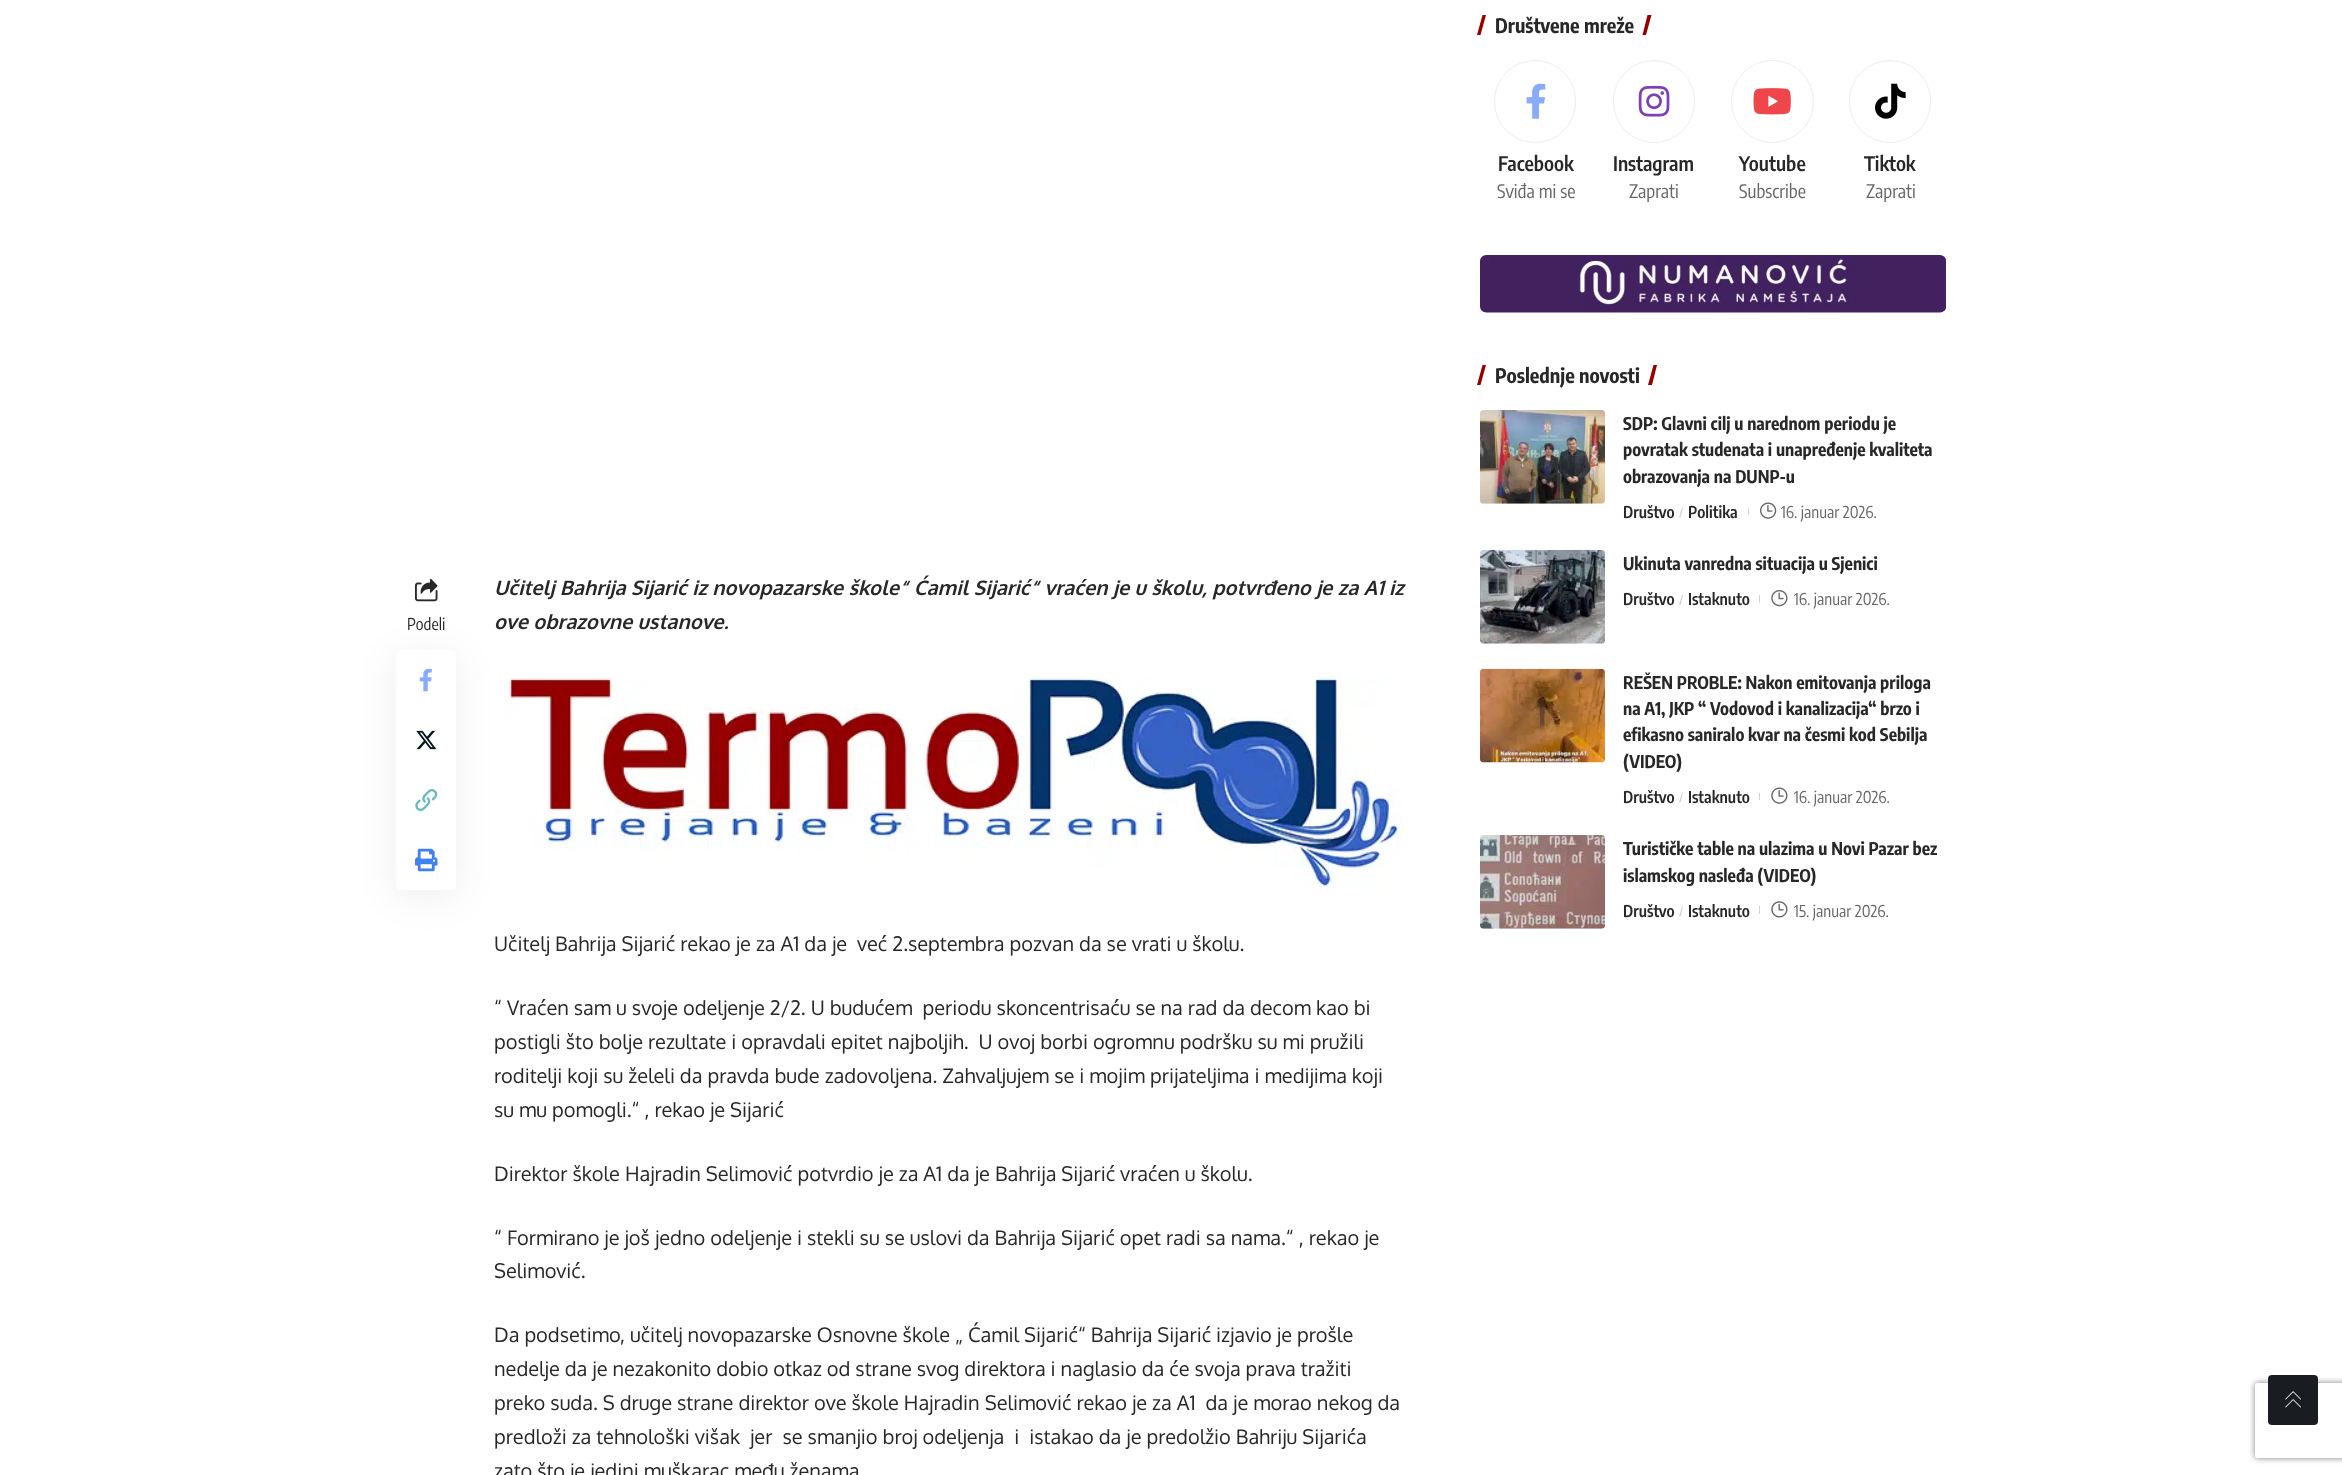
<svg xmlns="http://www.w3.org/2000/svg" width="2342" height="1475">
<defs>
<clipPath id="clip1"><path d="M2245 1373h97v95h-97zm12.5 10h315c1.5 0 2.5 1 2.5 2.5v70c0 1.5-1 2.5-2.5 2.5h-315c-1.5 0-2.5-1-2.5-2.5v-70c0-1.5 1-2.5 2.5-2.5z" clip-rule="evenodd"/></clipPath>
</defs>
<rect width="100%" height="100%" fill="#fff"/>
<path d="M1647.5 15h4l-5.5 20h-3.5z" fill="#980000"/>
<path d="M1482.5 15h3.5l-5.5 20h-3.5z" fill="#980000"/>
<text x="1495" y="33" style="font-family:Encode Sans Condensed;font-size:20px;font-weight:bold;fill:#282828">Društvene mreže</text>
<rect x="1494.5" y="60.5" width="81" height="82" rx="40.5" fill="none" stroke="#ededed"/>
<image x="1526" y="83" width="20" height="36" href="media/1.png"/>
<text x="1498" y="171" style="font-family:Encode Sans Condensed;font-size:20px;font-weight:600;fill:#282828">Facebook</text>
<text x="1497" y="198" style="font-family:Encode Sans Condensed;font-size:18.5px;fill:#666">Sviđa mi se</text>
<rect x="1613.5" y="60.5" width="81" height="82" rx="40.5" fill="none" stroke="#ededed"/>
<image x="1638" y="85" width="32" height="32" href="media/2.png"/>
<text x="1613" y="171" style="font-family:Encode Sans Condensed;font-size:20px;font-weight:600;fill:#282828">Instagram</text>
<text x="1629" y="198" style="font-family:Encode Sans Condensed;font-size:18.5px;fill:#666">Zaprati</text>
<circle cx="1772.5" cy="101.5" r="41" fill="none" stroke="#ededed"/>
<image x="1753" y="88" width="38" height="27" href="media/3.png"/>
<text x="1739" y="171" style="font-family:Encode Sans Condensed;font-size:20px;font-weight:600;fill:#282828">Youtube</text>
<text x="1739" y="198" style="font-family:Encode Sans Condensed;font-size:18.5px;fill:#666">Subscribe</text>
<rect x="1849.5" y="60.5" width="81" height="82" rx="40.5" fill="none" stroke="#ededed"/>
<image x="1875" y="83" width="31" height="36" href="media/4.png"/>
<text x="1864" y="171" style="font-family:Encode Sans Condensed;font-size:20px;font-weight:600;fill:#282828">Tiktok</text>
<text x="1866" y="198" style="font-family:Encode Sans Condensed;font-size:18.5px;fill:#666">Zaprati</text>
<image x="1480" y="255" width="466" height="58" href="media/5.png"/>
<path d="M1653.5 365h3.5l-5 20h-4z" fill="#980000"/>
<path d="M1482.5 365h3.5l-5.5 20h-3.5z" fill="#980000"/>
<text x="1495" y="383" style="font-family:Encode Sans Condensed;font-size:20px;font-weight:bold;fill:#282828">Poslednje novosti</text>
<image x="1480" y="410" width="125" height="94" href="media/6.png"/>
<text x="1623" y="430" style="font-family:Encode Sans Condensed;font-size:17.5px;font-weight:bold;fill:#282828">SDP: Glavni cilj u narednom periodu je</text>
<text x="1623" y="456" style="font-family:Encode Sans Condensed;font-size:17.5px;font-weight:bold;fill:#282828">povratak studenata i unapređenje kvaliteta</text>
<text x="1623" y="483" style="font-family:Encode Sans Condensed;font-size:17.5px;font-weight:bold;fill:#282828">obrazovanja na DUNP-u</text>
<text x="1623" y="518" style="font-family:Encode Sans Condensed;font-size:16.25px;font-weight:600;fill:#282828">Društvo</text>
<path d="M1682 507.5h1l-2.5 10h-1.5z" fill="#d1d1d1"/>
<text x="1688" y="518" style="font-family:Encode Sans Condensed;font-size:16.25px;font-weight:600;fill:#282828">Politika</text>
<rect x="1748" y="508" width="1" height="7" fill="#d1d1d1"/>
<image x="1760" y="502" width="17" height="17" href="media/7.png"/>
<text x="1781" y="518" style="font-family:Encode Sans Condensed;font-size:16.25px;fill:#666">16. januar 2026.</text>
<image x="1480" y="550" width="125" height="94" href="media/8.png"/>
<text x="1623" y="570" style="font-family:Encode Sans Condensed;font-size:17.5px;font-weight:bold;fill:#282828">Ukinuta vanredna situacija u Sjenici</text>
<text x="1623" y="605" style="font-family:Encode Sans Condensed;font-size:16.25px;font-weight:600;fill:#282828">Društvo</text>
<path d="M1682 595h1l-2.5 10h-1.5z" fill="#d1d1d1"/>
<text x="1688" y="605" style="font-family:Encode Sans Condensed;font-size:16.25px;font-weight:600;fill:#282828">Istaknuto</text>
<rect x="1759" y="595" width="1" height="8" fill="#d1d1d1"/>
<image x="1771" y="590" width="17" height="17" href="media/9.png"/>
<text x="1794" y="605" style="font-family:Encode Sans Condensed;font-size:16.25px;fill:#666">16. januar 2026.</text>
<image x="1480" y="668" width="125" height="95" href="media/10.png"/>
<text x="1623" y="689" style="font-family:Encode Sans Condensed;font-size:17.5px;font-weight:bold;fill:#282828">REŠEN PROBLE: Nakon emitovanja priloga</text>
<text x="1623" y="715" style="font-family:Encode Sans Condensed;font-size:17.5px;font-weight:bold;fill:#282828">na A1, JKP “ Vodovod i kanalizacija“ brzo i</text>
<text x="1623" y="741" style="font-family:Encode Sans Condensed;font-size:17.5px;font-weight:bold;fill:#282828">efikasno saniralo kvar na česmi kod Sebilja</text>
<text x="1623" y="768" style="font-family:Encode Sans Condensed;font-size:17.5px;font-weight:bold;fill:#282828">(VIDEO)</text>
<text x="1623" y="803" style="font-family:Encode Sans Condensed;font-size:16.25px;font-weight:600;fill:#282828">Društvo</text>
<path d="M1682 792.5h1l-2.5 10h-1.5z" fill="#d1d1d1"/>
<text x="1688" y="803" style="font-family:Encode Sans Condensed;font-size:16.25px;font-weight:600;fill:#282828">Istaknuto</text>
<rect x="1759" y="793" width="1" height="7" fill="#d1d1d1"/>
<image x="1771" y="787" width="17" height="17" href="media/11.png"/>
<text x="1794" y="803" style="font-family:Encode Sans Condensed;font-size:16.25px;fill:#666">16. januar 2026.</text>
<image x="1480" y="835" width="125" height="94" href="media/12.png"/>
<text x="1623" y="855" style="font-family:Encode Sans Condensed;font-size:17.5px;font-weight:bold;fill:#282828">Turističke table na ulazima u Novi Pazar bez</text>
<text x="1623" y="882" style="font-family:Encode Sans Condensed;font-size:17.5px;font-weight:bold;fill:#282828">islamskog nasleđa (VIDEO)</text>
<text x="1623" y="917" style="font-family:Encode Sans Condensed;font-size:16.25px;font-weight:600;fill:#282828">Društvo</text>
<path d="M1682 906.5h1l-2.5 10h-1.5z" fill="#d1d1d1"/>
<text x="1688" y="917" style="font-family:Encode Sans Condensed;font-size:16.25px;font-weight:600;fill:#282828">Istaknuto</text>
<rect x="1759" y="906" width="1" height="8" fill="#d1d1d1"/>
<image x="1771" y="901" width="17" height="17" href="media/13.png"/>
<text x="1794" y="917" style="font-family:Encode Sans Condensed;font-size:16.25px;fill:#666">15. januar 2026.</text>
<rect x="396" y="656" width="60" height="240" rx="6" fill="#00000012" filter="blur(19px)"/>
<rect x="396" y="650" width="60" height="240" rx="6" fill="#fff"/>
<image x="419" y="668" width="13" height="24" href="media/14.png"/>
<image x="416" y="730" width="21" height="20" href="media/15.png"/>
<image x="415" y="789" width="23" height="22" href="media/16.png"/>
<image x="415" y="848" width="23" height="24" href="media/17.png"/>
<image x="415" y="578" width="23" height="24" href="media/18.png"/>
<text x="407" y="630" style="font-family:Encode Sans Condensed;font-size:16.25px;fill:#282828">Podeli</text>
<text x="494" y="595" style="font-family:Oxygen;font-size:20px;font-weight:bold;font-style:italic;fill:#282828">Učitelj Bahrija Sijarić iz novopazarske škole“ Ćamil Sijarić“ vraćen je u školu, potvrđeno je za A1 iz</text>
<text x="494" y="629" style="font-family:Oxygen;font-size:20px;font-weight:bold;font-style:italic;fill:#282828">ove obrazovne ustanove.</text>
<image x="503" y="677" width="901" height="213" href="media/19.png"/>
<text x="494" y="951" style="font-family:Oxygen;font-size:20px;fill:#282828" xml:space="preserve">Učitelj Bahrija Sijarić rekao je za A1 da je  već 2.septembra pozvan da se vrati u školu.</text>
<text x="494" y="1015" style="font-family:Oxygen;font-size:20px;fill:#282828" xml:space="preserve">“ Vraćen sam u svoje odeljenje 2/2. U budućem  periodu skoncentrisaću se na rad da decom kao bi</text>
<text x="494" y="1049" style="font-family:Oxygen;font-size:20px;fill:#282828" xml:space="preserve">postigli što bolje rezultate i opravdali epitet najboljih.  U ovoj borbi ogromnu podršku su mi pružili</text>
<text x="494" y="1083" style="font-family:Oxygen;font-size:20px;fill:#282828">roditelji koji su želeli da pravda bude zadovoljena. Zahvaljujem se i mojim prijateljima i medijima koji</text>
<text x="494" y="1117" style="font-family:Oxygen;font-size:20px;fill:#282828">su mu pomogli.“ , rekao je Sijarić</text>
<text x="494" y="1181" style="font-family:Oxygen;font-size:20px;fill:#282828">Direktor škole Hajradin Selimović potvrdio je za A1 da je Bahrija Sijarić vraćen u školu.</text>
<text x="494" y="1245" style="font-family:Oxygen;font-size:20px;fill:#282828">“ Formirano je još jedno odeljenje i stekli su se uslovi da Bahrija Sijarić opet radi sa nama.“ , rekao je</text>
<text x="494" y="1278" style="font-family:Oxygen;font-size:20px;fill:#282828">Selimović.</text>
<text x="494" y="1342" style="font-family:Oxygen;font-size:20px;fill:#282828">Da podsetimo, učitelj novopazarske Osnovne škole „ Ćamil Sijarić“ Bahrija Sijarić izjavio je prošle</text>
<text x="494" y="1376" style="font-family:Oxygen;font-size:20px;fill:#282828">nedelje da je nezakonito dobio otkaz od strane svog direktora i naglasio da će svoja prava tražiti</text>
<text x="494" y="1410" style="font-family:Oxygen;font-size:20px;fill:#282828" xml:space="preserve">preko suda. S druge strane direktor ove škole Hajradin Selimović rekao je za A1  da je morao nekog da</text>
<text x="494" y="1444" style="font-family:Oxygen;font-size:20px;fill:#282828" xml:space="preserve">predloži za tehnološki višak  jer  se smanjio broj odeljenja  i  istakao da je predolžio Bahriju Sijarića</text>
<text x="494" y="1478" style="font-family:Oxygen;font-size:20px;fill:#282828">zato što je jedini muškarac među ženama</text>
<g clip-path="url(#clip1)">
<rect x="2255" y="1383" width="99" height="75" rx="2.5" fill="#808080" filter="blur(3px)"/>
</g>
<rect x="2268" y="1375" width="50" height="50" rx="4" fill="#191c20"/>
<image x="2285" y="1391" width="16" height="17" href="media/20.png"/>
</svg>
